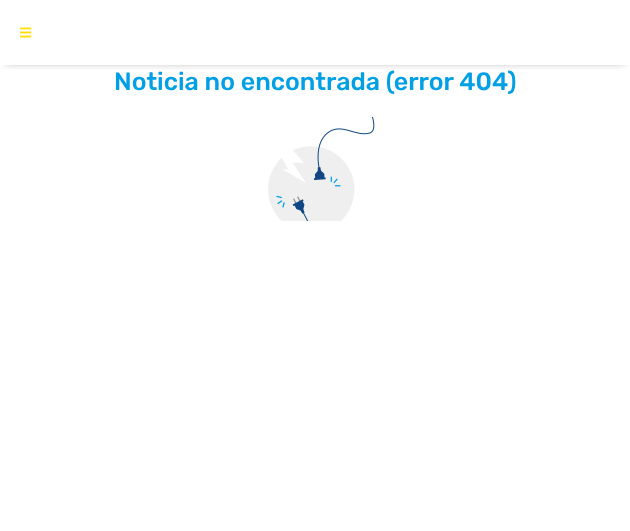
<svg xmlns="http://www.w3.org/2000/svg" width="630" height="531">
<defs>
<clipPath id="clip1"><rect x="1" y="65" width="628" height="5"/></clipPath>
</defs>
<rect width="100%" height="100%" fill="#fff"/>
<g clip-path="url(#clip1)">
<rect x="5" y="7" width="620" height="55" fill="#00000066" filter="blur(5px)"/>
</g>
<image x="20" y="27" width="12" height="11" href="media/1.png"/>
<text x="114" y="90" style="font-family:Rubik;font-size:25px;font-weight:500;fill:#00a0e6">Noticia no encontrada (error 404)</text>
<image x="268" y="117" width="107" height="104" href="media/2.png"/>
</svg>
